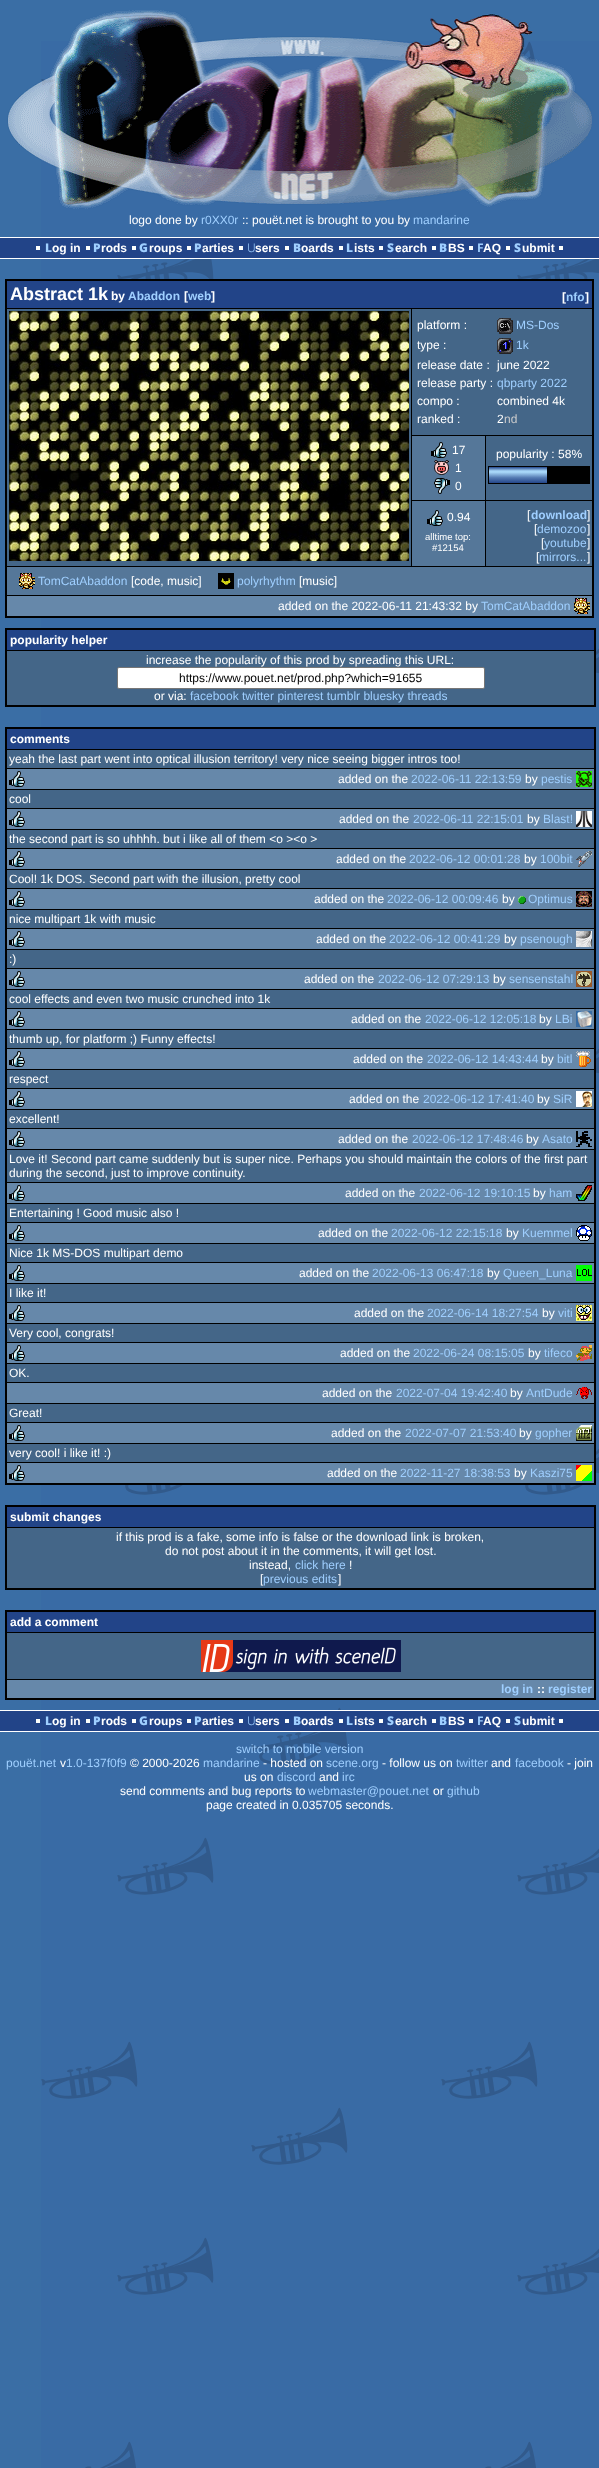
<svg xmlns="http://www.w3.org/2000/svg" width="599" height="2468">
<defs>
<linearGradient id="g1" gradientUnits="userSpaceOnUse" x1="518" y1="467" x2="518" y2="483"><stop offset="0" stop-color="#24468a"/><stop offset="0.25" stop-color="#a7d6f8"/><stop offset="0.33" stop-color="#a7d6f8"/><stop offset="0.67" stop-color="#547ab2"/><stop offset="1" stop-color="#24468a"/></linearGradient>
</defs>
<rect width="100%" height="100%" fill="#3a6ea5"/>
<image x="41" y="41" width="558" height="2427" href="media/1.png"/>
<image x="7" y="10" width="585" height="199" href="media/2.png"/>
<text x="129" y="224" style="font-family:Liberation Sans;font-size:12px;fill:#fff">logo done by</text>
<text x="201" y="224" style="font-family:Liberation Sans;font-size:12px;fill:#9fcfff">r0XX0r</text>
<text x="242" y="224" style="font-family:Liberation Sans;font-size:12px;fill:#fff">:: pouët.net is brought to you by</text>
<text x="413" y="224" style="font-family:Liberation Sans;font-size:12px;fill:#9fcfff">mandarine</text>
<rect y="238" width="599" height="20" fill="#248"/>
<rect y="237" width="599" height="1" fill="#fff"/>
<rect y="258" width="599" height="1" fill="#fff"/>
<image x="36" y="246" width="54" height="4" href="media/3.png"/>
<text x="45" y="252" style="font-family:Noto Sans;font-size:12px;font-weight:900;fill:#9fcfff">L</text>
<text x="52" y="252" style="font-family:Liberation Sans;font-size:12px;font-weight:bold;fill:#fff">og in</text>
<rect x="132" y="246" width="4" height="4" fill="#fcfefc"/>
<text x="93" y="252" style="font-family:Noto Sans;font-size:12px;font-weight:900;fill:#9fcfff">P</text>
<text x="101" y="252" style="font-family:Liberation Sans;font-size:12px;font-weight:bold;fill:#fff">rods</text>
<rect x="187" y="246" width="4" height="4" fill="#fcfefc"/>
<text x="139" y="252" style="font-family:Noto Sans;font-size:12px;font-weight:900;fill:#9fcfff">G</text>
<text x="149" y="252" style="font-family:Liberation Sans;font-size:12px;font-weight:bold;fill:#fff">roups</text>
<rect x="239" y="246" width="4" height="4" fill="#fcfefc"/>
<text x="194" y="252" style="font-family:Noto Sans;font-size:12px;font-weight:900;fill:#9fcfff">P</text>
<text x="202" y="252" style="font-family:Liberation Sans;font-size:12px;font-weight:bold;fill:#fff">arties</text>
<rect x="285" y="246" width="4" height="4" fill="#fcfefc"/>
<text x="247" y="252" style="font-family:Noto Sans;font-size:12px;font-weight:300;fill:#9fcfff">U</text>
<text x="255" y="252" style="font-family:Liberation Sans;font-size:12px;font-weight:bold;fill:#fff">sers</text>
<rect x="339" y="246" width="4" height="4" fill="#fcfefc"/>
<text x="293" y="252" style="font-family:Noto Sans;font-size:12px;font-weight:900;fill:#9fcfff">B</text>
<text x="301" y="252" style="font-family:Liberation Sans;font-size:12px;font-weight:bold;fill:#fff">oards</text>
<rect x="379" y="246" width="4" height="4" fill="#fcfefc"/>
<text x="346" y="252" style="font-family:Noto Sans;font-size:12px;font-weight:900;fill:#9fcfff">L</text>
<text x="354" y="252" style="font-family:Liberation Sans;font-size:12px;font-weight:bold;fill:#fff">ists</text>
<rect x="432" y="246" width="4" height="4" fill="#fcfefc"/>
<text x="387" y="252" style="font-family:Noto Sans;font-size:12px;font-weight:900;fill:#9fcfff">S</text>
<text x="395" y="252" style="font-family:Liberation Sans;font-size:12px;font-weight:bold;fill:#fff">earch</text>
<rect x="469" y="246" width="4" height="4" fill="#fcfefc"/>
<text x="439" y="252" style="font-family:Noto Sans;font-size:12px;font-weight:900;fill:#9fcfff">B</text>
<text x="448" y="252" style="font-family:Liberation Sans;font-size:12px;font-weight:bold;fill:#fff">BS</text>
<rect x="506" y="246" width="4" height="4" fill="#fcfefc"/>
<text x="477" y="252" style="font-family:Noto Sans;font-size:12px;font-weight:bold;fill:#9fcfff">F</text>
<text x="483" y="252" style="font-family:Liberation Sans;font-size:12px;font-weight:bold;fill:#fff">AQ</text>
<rect x="559" y="246" width="4" height="4" fill="#fcfefc"/>
<text x="514" y="252" style="font-family:Noto Sans;font-size:12px;font-weight:900;fill:#9fcfff">S</text>
<text x="522" y="252" style="font-family:Liberation Sans;font-size:12px;font-weight:bold;fill:#fff">ubmit</text>
<rect x="5" y="279" width="589" height="339" fill="#000"/>
<rect x="7" y="281" width="585" height="27" fill="#248"/>
<text x="10" y="300" style="font-family:Liberation Sans;font-size:18px;font-weight:bold;fill:#fff">Abstract 1k</text>
<text x="111" y="300" style="font-family:Liberation Sans;font-size:12px;font-weight:bold;fill:#fff">by</text>
<text x="128" y="300" style="font-family:Liberation Sans;font-size:12px;font-weight:bold;fill:#9fcfff">Abaddon</text>
<text x="184" y="300" style="font-family:Liberation Sans;font-size:12px;font-weight:bold;fill:#fff">[</text>
<text x="188" y="300" style="font-family:Liberation Sans;font-size:12px;font-weight:bold;fill:#9fcfff">web</text>
<text x="211" y="300" style="font-family:Liberation Sans;font-size:12px;font-weight:bold;fill:#fff">]</text>
<text x="562" y="301" style="font-family:Liberation Sans;font-size:12px;font-weight:bold;fill:#fff">[</text>
<text x="566" y="301" style="font-family:Liberation Sans;font-size:12px;font-weight:bold;fill:#9fcfff">nfo</text>
<text x="585" y="301" style="font-family:Liberation Sans;font-size:12px;font-weight:bold;fill:#fff">]</text>
<rect x="7" y="309" width="404" height="257" fill="#468"/>
<image x="9" y="311" width="400" height="250" href="media/4.png"/>
<rect x="412" y="309" width="180" height="126" fill="#468"/>
<text x="417" y="329" style="font-family:Liberation Sans;font-size:12px;fill:#fff">platform :</text>
<image x="497" y="318" width="16" height="16" href="media/5.png"/>
<text x="516" y="329" style="font-family:Liberation Sans;font-size:12px;fill:#9fcfff">MS-Dos</text>
<text x="417" y="349" style="font-family:Liberation Sans;font-size:12px;fill:#fff">type :</text>
<image x="497" y="338" width="16" height="16" href="media/6.png"/>
<text x="516" y="349" style="font-family:Liberation Sans;font-size:12px;fill:#9fcfff">1k</text>
<text x="417" y="369" style="font-family:Liberation Sans;font-size:12px;fill:#fff">release date :</text>
<text x="497" y="369" style="font-family:Liberation Sans;font-size:12px;fill:#fff">june 2022</text>
<text x="417" y="387" style="font-family:Liberation Sans;font-size:12px;fill:#fff">release party :</text>
<text x="497" y="387" style="font-family:Liberation Sans;font-size:12px;fill:#9fcfff">qbparty 2022</text>
<text x="417" y="405" style="font-family:Liberation Sans;font-size:12px;fill:#fff">compo :</text>
<text x="497" y="405" style="font-family:Liberation Sans;font-size:12px;fill:#fff">combined 4k</text>
<text x="417" y="423" style="font-family:Liberation Sans;font-size:12px;fill:#fff">ranked :</text>
<text x="497" y="423" style="font-family:Liberation Sans;font-size:12px;fill:#fff">2</text>
<text x="504" y="423" style="font-family:Liberation Sans;font-size:12px;fill:#ccc">nd</text>
<rect x="412" y="436" width="73" height="64" fill="#579"/>
<image x="431" y="442" width="16" height="16" href="media/7.png"/>
<text x="452" y="454" style="font-family:Liberation Sans;font-size:12px;fill:#fff">17</text>
<image x="434" y="460" width="15" height="15" href="media/8.png"/>
<text x="455" y="472" style="font-family:Liberation Sans;font-size:12px;fill:#fff">1</text>
<image x="434" y="478" width="16" height="16" href="media/9.png"/>
<text x="455" y="490" style="font-family:Liberation Sans;font-size:12px;fill:#fff">0</text>
<rect x="486" y="436" width="106" height="64" fill="#468"/>
<text x="496" y="458" style="font-family:Liberation Sans;font-size:12px;fill:#fff">popularity : 58%</text>
<rect x="488" y="466" width="102" height="18" fill="#000"/>
<rect x="489" y="467" width="58" height="16" fill="url(#g1)"/>
<rect x="412" y="501" width="73" height="65" fill="#579"/>
<image x="427" y="510" width="16" height="16" href="media/7.png"/>
<text x="447" y="521" style="font-family:Liberation Sans;font-size:12px;fill:#fff">0.94</text>
<text x="425" y="540" style="font-family:Liberation Sans;font-size:9.5px;fill:#fff">alltime top:</text>
<text x="432" y="551" style="font-family:Liberation Sans;font-size:9.5px;fill:#fff">#12154</text>
<rect x="486" y="501" width="106" height="65" fill="#468"/>
<text x="527" y="519" style="font-family:Liberation Sans;font-size:12px;fill:#fff">[</text>
<text x="531" y="519" style="font-family:Liberation Sans;font-size:12px;font-weight:bold;fill:#9fcfff">download</text>
<text x="587" y="519" style="font-family:Liberation Sans;font-size:12px;fill:#fff">]</text>
<text x="534" y="533" style="font-family:Liberation Sans;font-size:12px;fill:#fff">[</text>
<text x="537" y="533" style="font-family:Liberation Sans;font-size:12px;fill:#9fcfff">demozoo</text>
<text x="587" y="533" style="font-family:Liberation Sans;font-size:12px;fill:#fff">]</text>
<text x="541" y="547" style="font-family:Liberation Sans;font-size:12px;fill:#fff">[</text>
<text x="544" y="547" style="font-family:Liberation Sans;font-size:12px;fill:#9fcfff">youtube</text>
<text x="587" y="547" style="font-family:Liberation Sans;font-size:12px;fill:#fff">]</text>
<text x="536" y="561" style="font-family:Liberation Sans;font-size:12px;fill:#fff">[</text>
<text x="539" y="561" style="font-family:Liberation Sans;font-size:12px;fill:#9fcfff">mirrors...</text>
<text x="587" y="561" style="font-family:Liberation Sans;font-size:12px;fill:#fff">]</text>
<rect x="7" y="567" width="585" height="28" fill="#579"/>
<image x="19" y="573" width="16" height="16" href="media/10.png"/>
<text x="38" y="585" style="font-family:Liberation Sans;font-size:12px;fill:#9fcfff">TomCatAbaddon</text>
<text x="131" y="585" style="font-family:Liberation Sans;font-size:12px;fill:#fff">[code, music]</text>
<image x="218" y="573" width="16" height="16" href="media/11.png"/>
<text x="237" y="585" style="font-family:Liberation Sans;font-size:12px;fill:#9fcfff">polyrhythm</text>
<text x="299" y="585" style="font-family:Liberation Sans;font-size:12px;fill:#fff">[music]</text>
<rect x="7" y="596" width="585" height="20" fill="#68a"/>
<text x="278" y="610" style="font-family:Liberation Sans;font-size:12px;fill:#fff">added on the 2022-06-11 21:43:32 by</text>
<text x="481" y="610" style="font-family:Liberation Sans;font-size:12px;fill:#9fcfff">TomCatAbaddon</text>
<image x="574" y="598" width="16" height="16" href="media/12.png"/>
<rect x="5" y="628" width="591" height="79" fill="#000"/>
<rect x="7" y="630" width="587" height="20" fill="#248"/>
<text x="10" y="644" style="font-family:Liberation Sans;font-size:12px;font-weight:bold;fill:#fff">popularity helper</text>
<rect x="7" y="651" width="587" height="54" fill="#468"/>
<text x="146" y="664" style="font-family:Liberation Sans;font-size:12px;fill:#fff">increase the popularity of this prod by spreading this URL:</text>
<rect x="117.5" y="667.5" width="367" height="21" rx="1.5" fill="#fff" stroke="#767676"/>
<text x="179" y="682" style="font-family:Liberation Sans;font-size:12px;fill:#000">https://www.pouet.net/prod.php?which=91655</text>
<text x="154" y="700" style="font-family:Liberation Sans;font-size:12px;fill:#fff">or via:</text>
<text x="190" y="700" style="font-family:Liberation Sans;font-size:12px;fill:#9fcfff">facebook twitter pinterest tumblr bluesky threads</text>
<rect x="5" y="727" width="591" height="758" fill="#000"/>
<rect x="7" y="729" width="587" height="20" fill="#248"/>
<text x="10" y="743" style="font-family:Liberation Sans;font-size:12px;font-weight:bold;fill:#fff">comments</text>
<rect x="7" y="750" width="587" height="18" fill="#468"/>
<text x="9" y="763" style="font-family:Liberation Sans;font-size:12px;fill:#fff">yeah the last part went into optical illusion territory! very nice seeing bigger intros too!</text>
<rect x="7" y="769" width="587" height="20" fill="#68a"/>
<image x="9" y="771" width="16" height="16" href="media/13.png"/>
<text x="338" y="783" style="font-family:Liberation Sans;font-size:12px;fill:#fff">added on the</text>
<text x="411" y="783" style="font-family:Liberation Sans;font-size:12px;fill:#9fcfff">2022-06-11 22:13:59</text>
<text x="525" y="783" style="font-family:Liberation Sans;font-size:12px;fill:#fff">by</text>
<text x="541" y="783" style="font-family:Liberation Sans;font-size:12px;fill:#9fcfff">pestis</text>
<image x="576" y="771" width="16" height="16" href="media/14.png"/>
<rect x="7" y="790" width="587" height="18" fill="#468"/>
<text x="9" y="803" style="font-family:Liberation Sans;font-size:12px;fill:#fff">cool</text>
<rect x="7" y="809" width="587" height="20" fill="#68a"/>
<image x="9" y="811" width="16" height="16" href="media/13.png"/>
<text x="339" y="823" style="font-family:Liberation Sans;font-size:12px;fill:#fff">added on the</text>
<text x="413" y="823" style="font-family:Liberation Sans;font-size:12px;fill:#9fcfff">2022-06-11 22:15:01</text>
<text x="527" y="823" style="font-family:Liberation Sans;font-size:12px;fill:#fff">by</text>
<text x="543" y="823" style="font-family:Liberation Sans;font-size:12px;fill:#9fcfff">Blast!</text>
<image x="576" y="811" width="16" height="16" href="media/15.png"/>
<rect x="7" y="830" width="587" height="18" fill="#468"/>
<text x="9" y="843" style="font-family:Liberation Sans;font-size:12px;fill:#fff">the second part is so uhhhh. but i like all of them &lt;o &gt;&lt;o &gt;</text>
<rect x="7" y="849" width="587" height="20" fill="#68a"/>
<image x="9" y="851" width="16" height="16" href="media/13.png"/>
<text x="336" y="863" style="font-family:Liberation Sans;font-size:12px;fill:#fff">added on the</text>
<text x="409" y="863" style="font-family:Liberation Sans;font-size:12px;fill:#9fcfff">2022-06-12 00:01:28</text>
<text x="524" y="863" style="font-family:Liberation Sans;font-size:12px;fill:#fff">by</text>
<text x="540" y="863" style="font-family:Liberation Sans;font-size:12px;fill:#9fcfff">100bit</text>
<image x="576" y="851" width="16" height="16" href="media/16.png"/>
<rect x="7" y="870" width="587" height="18" fill="#468"/>
<text x="9" y="883" style="font-family:Liberation Sans;font-size:12px;fill:#fff">Cool! 1k DOS. Second part with the illusion, pretty cool</text>
<rect x="7" y="889" width="587" height="20" fill="#68a"/>
<image x="9" y="891" width="16" height="16" href="media/13.png"/>
<text x="314" y="903" style="font-family:Liberation Sans;font-size:12px;fill:#fff">added on the</text>
<text x="387" y="903" style="font-family:Liberation Sans;font-size:12px;fill:#9fcfff">2022-06-12 00:09:46</text>
<text x="502" y="903" style="font-family:Liberation Sans;font-size:12px;fill:#fff">by</text>
<image x="518" y="896" width="8" height="8" href="media/17.png"/>
<text x="528" y="903" style="font-family:Liberation Sans;font-size:12px;fill:#9fcfff">Optimus</text>
<image x="576" y="891" width="16" height="16" href="media/18.png"/>
<rect x="7" y="910" width="587" height="18" fill="#468"/>
<text x="9" y="923" style="font-family:Liberation Sans;font-size:12px;fill:#fff">nice multipart 1k with music</text>
<rect x="7" y="929" width="587" height="20" fill="#68a"/>
<image x="9" y="931" width="16" height="16" href="media/13.png"/>
<text x="316" y="943" style="font-family:Liberation Sans;font-size:12px;fill:#fff">added on the</text>
<text x="389" y="943" style="font-family:Liberation Sans;font-size:12px;fill:#9fcfff">2022-06-12 00:41:29</text>
<text x="504" y="943" style="font-family:Liberation Sans;font-size:12px;fill:#fff">by</text>
<text x="520" y="943" style="font-family:Liberation Sans;font-size:12px;fill:#9fcfff">psenough</text>
<image x="576" y="931" width="16" height="16" href="media/19.png"/>
<rect x="7" y="950" width="587" height="18" fill="#468"/>
<text x="9" y="963" style="font-family:Liberation Sans;font-size:12px;fill:#fff">:)</text>
<rect x="7" y="969" width="587" height="20" fill="#68a"/>
<image x="9" y="971" width="16" height="16" href="media/13.png"/>
<text x="304" y="983" style="font-family:Liberation Sans;font-size:12px;fill:#fff">added on the</text>
<text x="378" y="983" style="font-family:Liberation Sans;font-size:12px;fill:#9fcfff">2022-06-12 07:29:13</text>
<text x="493" y="983" style="font-family:Liberation Sans;font-size:12px;fill:#fff">by</text>
<text x="509" y="983" style="font-family:Liberation Sans;font-size:12px;fill:#9fcfff">sensenstahl</text>
<image x="576" y="971" width="16" height="16" href="media/20.png"/>
<rect x="7" y="990" width="587" height="18" fill="#468"/>
<text x="9" y="1003" style="font-family:Liberation Sans;font-size:12px;fill:#fff">cool effects and even two music crunched into 1k</text>
<rect x="7" y="1009" width="587" height="20" fill="#68a"/>
<image x="9" y="1011" width="16" height="16" href="media/13.png"/>
<text x="351" y="1023" style="font-family:Liberation Sans;font-size:12px;fill:#fff">added on the</text>
<text x="425" y="1023" style="font-family:Liberation Sans;font-size:12px;fill:#9fcfff">2022-06-12 12:05:18</text>
<text x="539" y="1023" style="font-family:Liberation Sans;font-size:12px;fill:#fff">by</text>
<text x="555" y="1023" style="font-family:Liberation Sans;font-size:12px;fill:#9fcfff">LBi</text>
<image x="576" y="1011" width="16" height="16" href="media/21.png"/>
<rect x="7" y="1030" width="587" height="18" fill="#468"/>
<text x="9" y="1043" style="font-family:Liberation Sans;font-size:12px;fill:#fff">thumb up, for platform ;) Funny effects!</text>
<rect x="7" y="1049" width="587" height="20" fill="#68a"/>
<image x="9" y="1051" width="16" height="16" href="media/13.png"/>
<text x="353" y="1063" style="font-family:Liberation Sans;font-size:12px;fill:#fff">added on the</text>
<text x="427" y="1063" style="font-family:Liberation Sans;font-size:12px;fill:#9fcfff">2022-06-12 14:43:44</text>
<text x="541" y="1063" style="font-family:Liberation Sans;font-size:12px;fill:#fff">by</text>
<text x="557" y="1063" style="font-family:Liberation Sans;font-size:12px;fill:#9fcfff">bitl</text>
<image x="576" y="1051" width="15" height="16" href="media/22.png"/>
<rect x="7" y="1070" width="587" height="18" fill="#468"/>
<text x="9" y="1083" style="font-family:Liberation Sans;font-size:12px;fill:#fff">respect</text>
<rect x="7" y="1089" width="587" height="20" fill="#68a"/>
<image x="9" y="1091" width="16" height="16" href="media/13.png"/>
<text x="349" y="1103" style="font-family:Liberation Sans;font-size:12px;fill:#fff">added on the</text>
<text x="423" y="1103" style="font-family:Liberation Sans;font-size:12px;fill:#9fcfff">2022-06-12 17:41:40</text>
<text x="537" y="1103" style="font-family:Liberation Sans;font-size:12px;fill:#fff">by</text>
<text x="553" y="1103" style="font-family:Liberation Sans;font-size:12px;fill:#9fcfff">SiR</text>
<image x="576" y="1091" width="16" height="16" href="media/23.png"/>
<rect x="7" y="1110" width="587" height="18" fill="#468"/>
<text x="9" y="1123" style="font-family:Liberation Sans;font-size:12px;fill:#fff">excellent!</text>
<rect x="7" y="1129" width="587" height="20" fill="#68a"/>
<image x="9" y="1131" width="16" height="16" href="media/13.png"/>
<text x="338" y="1143" style="font-family:Liberation Sans;font-size:12px;fill:#fff">added on the</text>
<text x="412" y="1143" style="font-family:Liberation Sans;font-size:12px;fill:#9fcfff">2022-06-12 17:48:46</text>
<text x="526" y="1143" style="font-family:Liberation Sans;font-size:12px;fill:#fff">by</text>
<text x="542" y="1143" style="font-family:Liberation Sans;font-size:12px;fill:#9fcfff">Asato</text>
<image x="576" y="1131" width="16" height="16" href="media/24.png"/>
<rect x="7" y="1150" width="587" height="32" fill="#468"/>
<text x="9" y="1163" style="font-family:Liberation Sans;font-size:12px;fill:#fff">Love it! Second part came suddenly but is super nice. Perhaps you should maintain the colors of the first part</text>
<text x="9" y="1177" style="font-family:Liberation Sans;font-size:12px;fill:#fff">during the second, just to improve continuity.</text>
<rect x="7" y="1183" width="587" height="20" fill="#68a"/>
<image x="9" y="1185" width="16" height="16" href="media/13.png"/>
<text x="345" y="1197" style="font-family:Liberation Sans;font-size:12px;fill:#fff">added on the</text>
<text x="419" y="1197" style="font-family:Liberation Sans;font-size:12px;fill:#9fcfff">2022-06-12 19:10:15</text>
<text x="533" y="1197" style="font-family:Liberation Sans;font-size:12px;fill:#fff">by</text>
<text x="549" y="1197" style="font-family:Liberation Sans;font-size:12px;fill:#9fcfff">ham</text>
<image x="576" y="1185" width="16" height="16" href="media/25.png"/>
<rect x="7" y="1204" width="587" height="18" fill="#468"/>
<text x="9" y="1217" style="font-family:Liberation Sans;font-size:12px;fill:#fff">Entertaining ! Good music also !</text>
<rect x="7" y="1223" width="587" height="20" fill="#68a"/>
<image x="9" y="1225" width="16" height="16" href="media/13.png"/>
<text x="318" y="1237" style="font-family:Liberation Sans;font-size:12px;fill:#fff">added on the</text>
<text x="391" y="1237" style="font-family:Liberation Sans;font-size:12px;fill:#9fcfff">2022-06-12 22:15:18</text>
<text x="506" y="1237" style="font-family:Liberation Sans;font-size:12px;fill:#fff">by</text>
<text x="522" y="1237" style="font-family:Liberation Sans;font-size:12px;fill:#9fcfff">Kuemmel</text>
<image x="576" y="1225" width="16" height="16" href="media/26.png"/>
<rect x="7" y="1244" width="587" height="18" fill="#468"/>
<text x="9" y="1257" style="font-family:Liberation Sans;font-size:12px;fill:#fff">Nice 1k MS-DOS multipart demo</text>
<rect x="7" y="1263" width="587" height="20" fill="#68a"/>
<image x="9" y="1265" width="16" height="16" href="media/13.png"/>
<text x="299" y="1277" style="font-family:Liberation Sans;font-size:12px;fill:#fff">added on the</text>
<text x="372" y="1277" style="font-family:Liberation Sans;font-size:12px;fill:#9fcfff">2022-06-13 06:47:18</text>
<text x="487" y="1277" style="font-family:Liberation Sans;font-size:12px;fill:#fff">by</text>
<text x="503" y="1277" style="font-family:Liberation Sans;font-size:12px;fill:#9fcfff">Queen_Luna</text>
<image x="576" y="1265" width="16" height="16" href="media/27.png"/>
<rect x="7" y="1284" width="587" height="18" fill="#468"/>
<text x="9" y="1297" style="font-family:Liberation Sans;font-size:12px;fill:#fff">I like it!</text>
<rect x="7" y="1303" width="587" height="20" fill="#68a"/>
<image x="9" y="1305" width="16" height="16" href="media/13.png"/>
<text x="354" y="1317" style="font-family:Liberation Sans;font-size:12px;fill:#fff">added on the</text>
<text x="427" y="1317" style="font-family:Liberation Sans;font-size:12px;fill:#9fcfff">2022-06-14 18:27:54</text>
<text x="542" y="1317" style="font-family:Liberation Sans;font-size:12px;fill:#fff">by</text>
<text x="558" y="1317" style="font-family:Liberation Sans;font-size:12px;fill:#9fcfff">viti</text>
<image x="576" y="1305" width="16" height="16" href="media/28.png"/>
<rect x="7" y="1324" width="587" height="18" fill="#468"/>
<text x="9" y="1337" style="font-family:Liberation Sans;font-size:12px;fill:#fff">Very cool, congrats!</text>
<rect x="7" y="1343" width="587" height="20" fill="#68a"/>
<image x="9" y="1345" width="16" height="16" href="media/13.png"/>
<text x="340" y="1357" style="font-family:Liberation Sans;font-size:12px;fill:#fff">added on the</text>
<text x="413" y="1357" style="font-family:Liberation Sans;font-size:12px;fill:#9fcfff">2022-06-24 08:15:05</text>
<text x="528" y="1357" style="font-family:Liberation Sans;font-size:12px;fill:#fff">by</text>
<text x="544" y="1357" style="font-family:Liberation Sans;font-size:12px;fill:#9fcfff">tifeco</text>
<image x="576" y="1345" width="16" height="16" href="media/29.png"/>
<rect x="7" y="1364" width="587" height="18" fill="#468"/>
<text x="9" y="1377" style="font-family:Liberation Sans;font-size:12px;fill:#fff">OK.</text>
<rect x="7" y="1383" width="587" height="20" fill="#68a"/>
<text x="322" y="1397" style="font-family:Liberation Sans;font-size:12px;fill:#fff">added on the</text>
<text x="396" y="1397" style="font-family:Liberation Sans;font-size:12px;fill:#9fcfff">2022-07-04 19:42:40</text>
<text x="510" y="1397" style="font-family:Liberation Sans;font-size:12px;fill:#fff">by</text>
<text x="526" y="1397" style="font-family:Liberation Sans;font-size:12px;fill:#9fcfff">AntDude</text>
<image x="576" y="1387" width="16" height="12" href="media/30.png"/>
<rect x="7" y="1404" width="587" height="18" fill="#468"/>
<text x="9" y="1417" style="font-family:Liberation Sans;font-size:12px;fill:#fff">Great!</text>
<rect x="7" y="1423" width="587" height="20" fill="#68a"/>
<image x="9" y="1425" width="16" height="16" href="media/13.png"/>
<text x="331" y="1437" style="font-family:Liberation Sans;font-size:12px;fill:#fff">added on the</text>
<text x="405" y="1437" style="font-family:Liberation Sans;font-size:12px;fill:#9fcfff">2022-07-07 21:53:40</text>
<text x="519" y="1437" style="font-family:Liberation Sans;font-size:12px;fill:#fff">by</text>
<text x="535" y="1437" style="font-family:Liberation Sans;font-size:12px;fill:#9fcfff">gopher</text>
<image x="576" y="1425" width="16" height="16" href="media/31.png"/>
<rect x="7" y="1444" width="587" height="18" fill="#468"/>
<text x="9" y="1457" style="font-family:Liberation Sans;font-size:12px;fill:#fff">very cool! i like it! :)</text>
<rect x="7" y="1463" width="587" height="20" fill="#68a"/>
<image x="9" y="1465" width="16" height="16" href="media/13.png"/>
<text x="327" y="1477" style="font-family:Liberation Sans;font-size:12px;fill:#fff">added on the</text>
<text x="400" y="1477" style="font-family:Liberation Sans;font-size:12px;fill:#9fcfff">2022-11-27 18:38:53</text>
<text x="514" y="1477" style="font-family:Liberation Sans;font-size:12px;fill:#fff">by</text>
<text x="530" y="1477" style="font-family:Liberation Sans;font-size:12px;fill:#9fcfff">Kaszi75</text>
<image x="576" y="1465" width="16" height="16" href="media/32.png"/>
<rect x="5" y="1505" width="591" height="85" fill="#000"/>
<rect x="7" y="1507" width="587" height="20" fill="#248"/>
<text x="10" y="1521" style="font-family:Liberation Sans;font-size:12px;font-weight:bold;fill:#fff">submit changes</text>
<rect x="7" y="1528" width="587" height="60" fill="#468"/>
<text x="116" y="1541" style="font-family:Liberation Sans;font-size:12px;fill:#fff">if this prod is a fake, some info is false or the download link is broken,</text>
<text x="165" y="1555" style="font-family:Liberation Sans;font-size:12px;fill:#fff">do not post about it in the comments, it will get lost.</text>
<text x="249" y="1569" style="font-family:Liberation Sans;font-size:12px;fill:#fff">instead,</text>
<text x="295" y="1569" style="font-family:Liberation Sans;font-size:12px;fill:#9fcfff">click here</text>
<text x="349" y="1569" style="font-family:Liberation Sans;font-size:12px;fill:#fff">!</text>
<text x="260" y="1583" style="font-family:Liberation Sans;font-size:12px;fill:#fff">[</text>
<text x="263" y="1583" style="font-family:Liberation Sans;font-size:12px;fill:#9fcfff">previous edits</text>
<text x="338" y="1583" style="font-family:Liberation Sans;font-size:12px;fill:#fff">]</text>
<rect x="5" y="1610" width="591" height="90" fill="#000"/>
<rect x="7" y="1612" width="587" height="20" fill="#248"/>
<text x="10" y="1626" style="font-family:Liberation Sans;font-size:12px;font-weight:bold;fill:#fff">add a comment</text>
<rect x="7" y="1633" width="587" height="46" fill="#468"/>
<image x="201" y="1640" width="200" height="32" href="media/33.png"/>
<rect x="7" y="1680" width="587" height="18" fill="#68a"/>
<text x="501" y="1693" style="font-family:Liberation Sans;font-size:12px;font-weight:bold;fill:#9fcfff">log in</text>
<text x="537" y="1693" style="font-family:Liberation Sans;font-size:12px;font-weight:bold;fill:#fff">::</text>
<text x="548" y="1693" style="font-family:Liberation Sans;font-size:12px;font-weight:bold;fill:#9fcfff">register</text>
<rect y="1711" width="599" height="20" fill="#248"/>
<rect y="1710" width="599" height="1" fill="#fff"/>
<rect y="1731" width="599" height="1" fill="#fff"/>
<image x="36" y="1719" width="54" height="4" href="media/3.png"/>
<text x="45" y="1725" style="font-family:Noto Sans;font-size:12px;font-weight:900;fill:#9fcfff">L</text>
<text x="52" y="1725" style="font-family:Liberation Sans;font-size:12px;font-weight:bold;fill:#fff">og in</text>
<rect x="132" y="1719" width="4" height="4" fill="#fcfefc"/>
<text x="93" y="1725" style="font-family:Noto Sans;font-size:12px;font-weight:900;fill:#9fcfff">P</text>
<text x="101" y="1725" style="font-family:Liberation Sans;font-size:12px;font-weight:bold;fill:#fff">rods</text>
<rect x="187" y="1719" width="4" height="4" fill="#fcfefc"/>
<text x="139" y="1725" style="font-family:Noto Sans;font-size:12px;font-weight:900;fill:#9fcfff">G</text>
<text x="149" y="1725" style="font-family:Liberation Sans;font-size:12px;font-weight:bold;fill:#fff">roups</text>
<rect x="239" y="1719" width="4" height="4" fill="#fcfefc"/>
<text x="194" y="1725" style="font-family:Noto Sans;font-size:12px;font-weight:900;fill:#9fcfff">P</text>
<text x="202" y="1725" style="font-family:Liberation Sans;font-size:12px;font-weight:bold;fill:#fff">arties</text>
<rect x="285" y="1719" width="4" height="4" fill="#fcfefc"/>
<text x="247" y="1725" style="font-family:Noto Sans;font-size:12px;font-weight:300;fill:#9fcfff">U</text>
<text x="255" y="1725" style="font-family:Liberation Sans;font-size:12px;font-weight:bold;fill:#fff">sers</text>
<rect x="339" y="1719" width="4" height="4" fill="#fcfefc"/>
<text x="293" y="1725" style="font-family:Noto Sans;font-size:12px;font-weight:900;fill:#9fcfff">B</text>
<text x="301" y="1725" style="font-family:Liberation Sans;font-size:12px;font-weight:bold;fill:#fff">oards</text>
<rect x="379" y="1719" width="4" height="4" fill="#fcfefc"/>
<text x="346" y="1725" style="font-family:Noto Sans;font-size:12px;font-weight:900;fill:#9fcfff">L</text>
<text x="354" y="1725" style="font-family:Liberation Sans;font-size:12px;font-weight:bold;fill:#fff">ists</text>
<rect x="432" y="1719" width="4" height="4" fill="#fcfefc"/>
<text x="387" y="1725" style="font-family:Noto Sans;font-size:12px;font-weight:900;fill:#9fcfff">S</text>
<text x="395" y="1725" style="font-family:Liberation Sans;font-size:12px;font-weight:bold;fill:#fff">earch</text>
<rect x="469" y="1719" width="4" height="4" fill="#fcfefc"/>
<text x="439" y="1725" style="font-family:Noto Sans;font-size:12px;font-weight:900;fill:#9fcfff">B</text>
<text x="448" y="1725" style="font-family:Liberation Sans;font-size:12px;font-weight:bold;fill:#fff">BS</text>
<rect x="506" y="1719" width="4" height="4" fill="#fcfefc"/>
<text x="477" y="1725" style="font-family:Noto Sans;font-size:12px;font-weight:bold;fill:#9fcfff">F</text>
<text x="483" y="1725" style="font-family:Liberation Sans;font-size:12px;font-weight:bold;fill:#fff">AQ</text>
<rect x="559" y="1719" width="4" height="4" fill="#fcfefc"/>
<text x="514" y="1725" style="font-family:Noto Sans;font-size:12px;font-weight:900;fill:#9fcfff">S</text>
<text x="522" y="1725" style="font-family:Liberation Sans;font-size:12px;font-weight:bold;fill:#fff">ubmit</text>
<text x="236" y="1753" style="font-family:Liberation Sans;font-size:12px;fill:#9fcfff">switch to mobile version</text>
<text x="6" y="1767" style="font-family:Liberation Sans;font-size:12px;fill:#9fcfff">pouët.net</text>
<text x="60" y="1767" style="font-family:Liberation Sans;font-size:12px;fill:#fff">v</text>
<text x="66" y="1767" style="font-family:Liberation Sans;font-size:12px;fill:#9fcfff">1.0-137f0f9</text>
<text x="130" y="1767" style="font-family:Liberation Sans;font-size:12px;fill:#fff">© 2000-2026</text>
<text x="203" y="1767" style="font-family:Liberation Sans;font-size:12px;fill:#9fcfff">mandarine</text>
<text x="263" y="1767" style="font-family:Liberation Sans;font-size:12px;fill:#fff">- hosted on</text>
<text x="326" y="1767" style="font-family:Liberation Sans;font-size:12px;fill:#9fcfff">scene.org</text>
<text x="382" y="1767" style="font-family:Liberation Sans;font-size:12px;fill:#fff">- follow us on</text>
<text x="456" y="1767" style="font-family:Liberation Sans;font-size:12px;fill:#9fcfff">twitter</text>
<text x="491" y="1767" style="font-family:Liberation Sans;font-size:12px;fill:#fff">and</text>
<text x="515" y="1767" style="font-family:Liberation Sans;font-size:12px;fill:#9fcfff">facebook</text>
<text x="567" y="1767" style="font-family:Liberation Sans;font-size:12px;fill:#fff">- join</text>
<text x="244" y="1781" style="font-family:Liberation Sans;font-size:12px;fill:#fff">us on</text>
<text x="277" y="1781" style="font-family:Liberation Sans;font-size:12px;fill:#9fcfff">discord</text>
<text x="319" y="1781" style="font-family:Liberation Sans;font-size:12px;fill:#fff">and</text>
<text x="342" y="1781" style="font-family:Liberation Sans;font-size:12px;fill:#9fcfff">irc</text>
<text x="120" y="1795" style="font-family:Liberation Sans;font-size:12px;fill:#fff">send comments and bug reports to</text>
<text x="308" y="1795" style="font-family:Liberation Sans;font-size:12px;fill:#9fcfff">webmaster@pouet.net</text>
<text x="433" y="1795" style="font-family:Liberation Sans;font-size:12px;fill:#fff">or</text>
<text x="447" y="1795" style="font-family:Liberation Sans;font-size:12px;fill:#9fcfff">github</text>
<text x="206" y="1809" style="font-family:Liberation Sans;font-size:12px;fill:#fff">page created in 0.035705 seconds.</text>
</svg>
